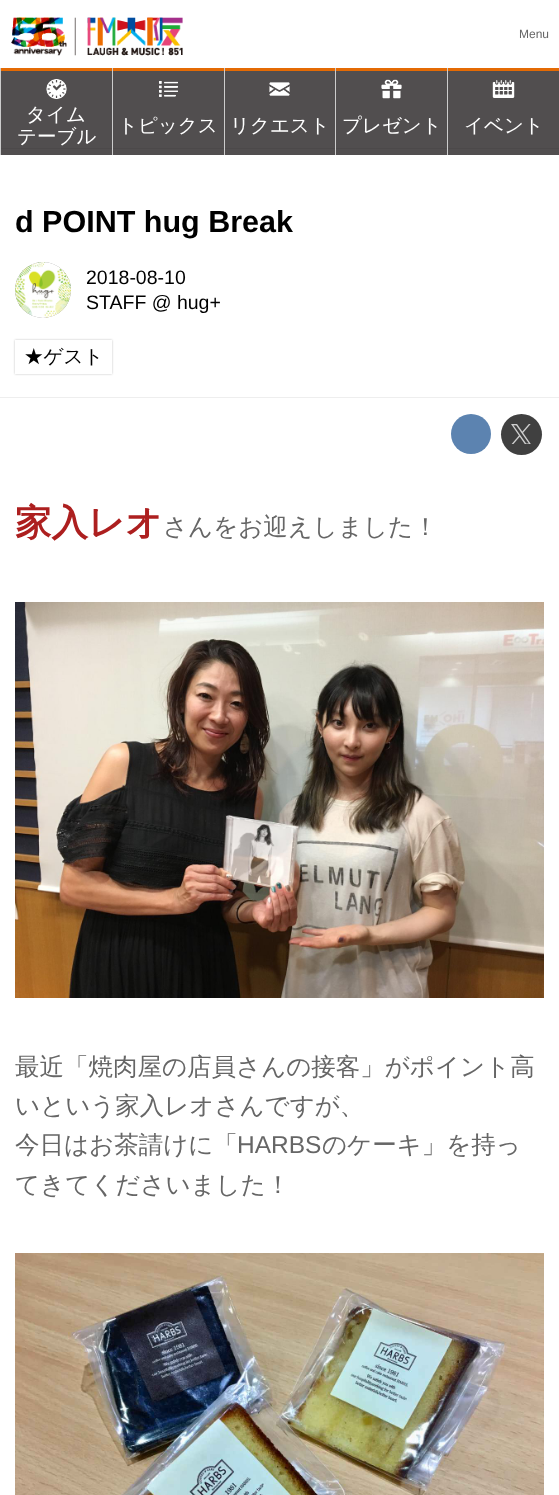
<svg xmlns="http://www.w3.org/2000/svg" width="559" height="1495">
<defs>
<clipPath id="clip1"><path d="M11 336h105v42h-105zm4 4h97v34h-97z" clip-rule="evenodd"/></clipPath>
</defs>
<rect width="100%" height="100%" fill="#fff"/>
<rect x="1" y="71" width="558" height="84" fill="#514e4f"/>
<image x="11" y="17" width="172" height="39" href="media/1.png"/>
<text x="519" y="38" style="font-family:Liberation Sans;font-size:12px;fill:#666">Menu</text>
<image x="46" y="79" width="21" height="20" href="media/2.png"/>
<rect y="68" width="559" height="3" fill="#e46a04"/>
<rect y="148" width="559" height="1" fill="#4c494a"/>
<rect y="68" width="1" height="87" fill="#ccc"/>
<text x="26" y="121" style="font-family:WenQuanYi Zen Hei;font-size:19.5px;font-weight:500;fill:#fff">タイム</text>
<text x="17" y="143" style="font-family:WenQuanYi Zen Hei;font-size:19.5px;font-weight:500;fill:#fff">テーブル</text>
<image x="159" y="81" width="19" height="16" href="media/3.png"/>
<rect x="112" y="68" width="1" height="87" fill="#ccc"/>
<text x="118" y="132" style="font-family:WenQuanYi Zen Hei;font-size:19.5px;font-weight:500;fill:#fff">トピックス</text>
<image x="269" y="82" width="21" height="14" href="media/4.png"/>
<rect x="224" y="68" width="1" height="87" fill="#ccc"/>
<text x="230" y="132" style="font-family:WenQuanYi Zen Hei;font-size:19.5px;font-weight:500;fill:#fff">リクエスト</text>
<image x="381" y="79" width="21" height="20" href="media/5.png"/>
<rect x="335" y="68" width="1" height="87" fill="#ccc"/>
<text x="342" y="132" style="font-family:WenQuanYi Zen Hei;font-size:19.5px;font-weight:500;fill:#fff">プレゼント</text>
<image x="492" y="80" width="23" height="18" href="media/6.png"/>
<rect x="447" y="68" width="1" height="87" fill="#ccc"/>
<text x="464" y="132" style="font-family:WenQuanYi Zen Hei;font-size:19.5px;font-weight:500;fill:#fff">イベント</text>
<rect y="397" width="559" height="1" fill="#eee"/>
<text x="15" y="232" style="font-family:Liberation Sans;font-size:30.5px;font-weight:bold;fill:#000">d POINT hug Break</text>
<circle cx="43" cy="290" r="28" fill="#888"/>
<image x="15" y="262" width="56" height="56" href="media/7.png"/>
<text x="86" y="284" style="font-family:Liberation Sans;font-size:19.5px;fill:#000">2018-08-10</text>
<text x="86" y="309" style="font-family:Liberation Sans;font-size:19.5px;fill:#000">STAFF @ hug+</text>
<g clip-path="url(#clip1)">
<rect x="15" y="340" width="97" height="34" fill="#00000040" filter="blur(1px)"/>
</g>
<text x="24" y="363" style="font-family:WenQuanYi Zen Hei;font-size:19.5px;font-weight:500;fill:#000">★ゲスト</text>
<circle cx="471" cy="434" r="20" fill="#5c83b0"/>
<circle cx="521.5" cy="434.5" r="20.5" fill="#404040"/>
<image x="511" y="424" width="20" height="20" href="media/8.png"/>
<text x="15" y="535" style="font-family:WenQuanYi Zen Hei;font-size:36.5px;font-weight:bold;fill:#ad1f1f">家入レオ</text>
<text x="163" y="535" style="font-family:WenQuanYi Zen Hei;font-size:24.5px;font-weight:500;fill:#666">さんをお迎えしました！</text>
<image x="15" y="602" width="529" height="396" href="media/9.png"/>
<text x="15" y="1075" style="font-family:WenQuanYi Zen Hei;font-size:24.5px;font-weight:500;fill:#666">最近「焼肉屋の店員さんの接客」がポイント高</text>
<text x="15" y="1114" style="font-family:WenQuanYi Zen Hei;font-size:24.5px;font-weight:500;fill:#666">いという家入レオさんですが、</text>
<text x="15" y="1153" style="font-family:WenQuanYi Zen Hei;font-size:24.5px;font-weight:500;fill:#666">今日はお茶請けに「</text>
<text x="237" y="1153" style="font-family:Liberation Sans;font-size:24.5px;fill:#666">HARBS</text>
<text x="322" y="1153" style="font-family:WenQuanYi Zen Hei;font-size:24.5px;font-weight:500;fill:#666">のケーキ」を持っ</text>
<text x="15" y="1193" style="font-family:WenQuanYi Zen Hei;font-size:24.5px;font-weight:500;fill:#666">てきてくださいました！</text>
<image x="15" y="1253" width="529" height="242" href="media/10.png"/>
</svg>
